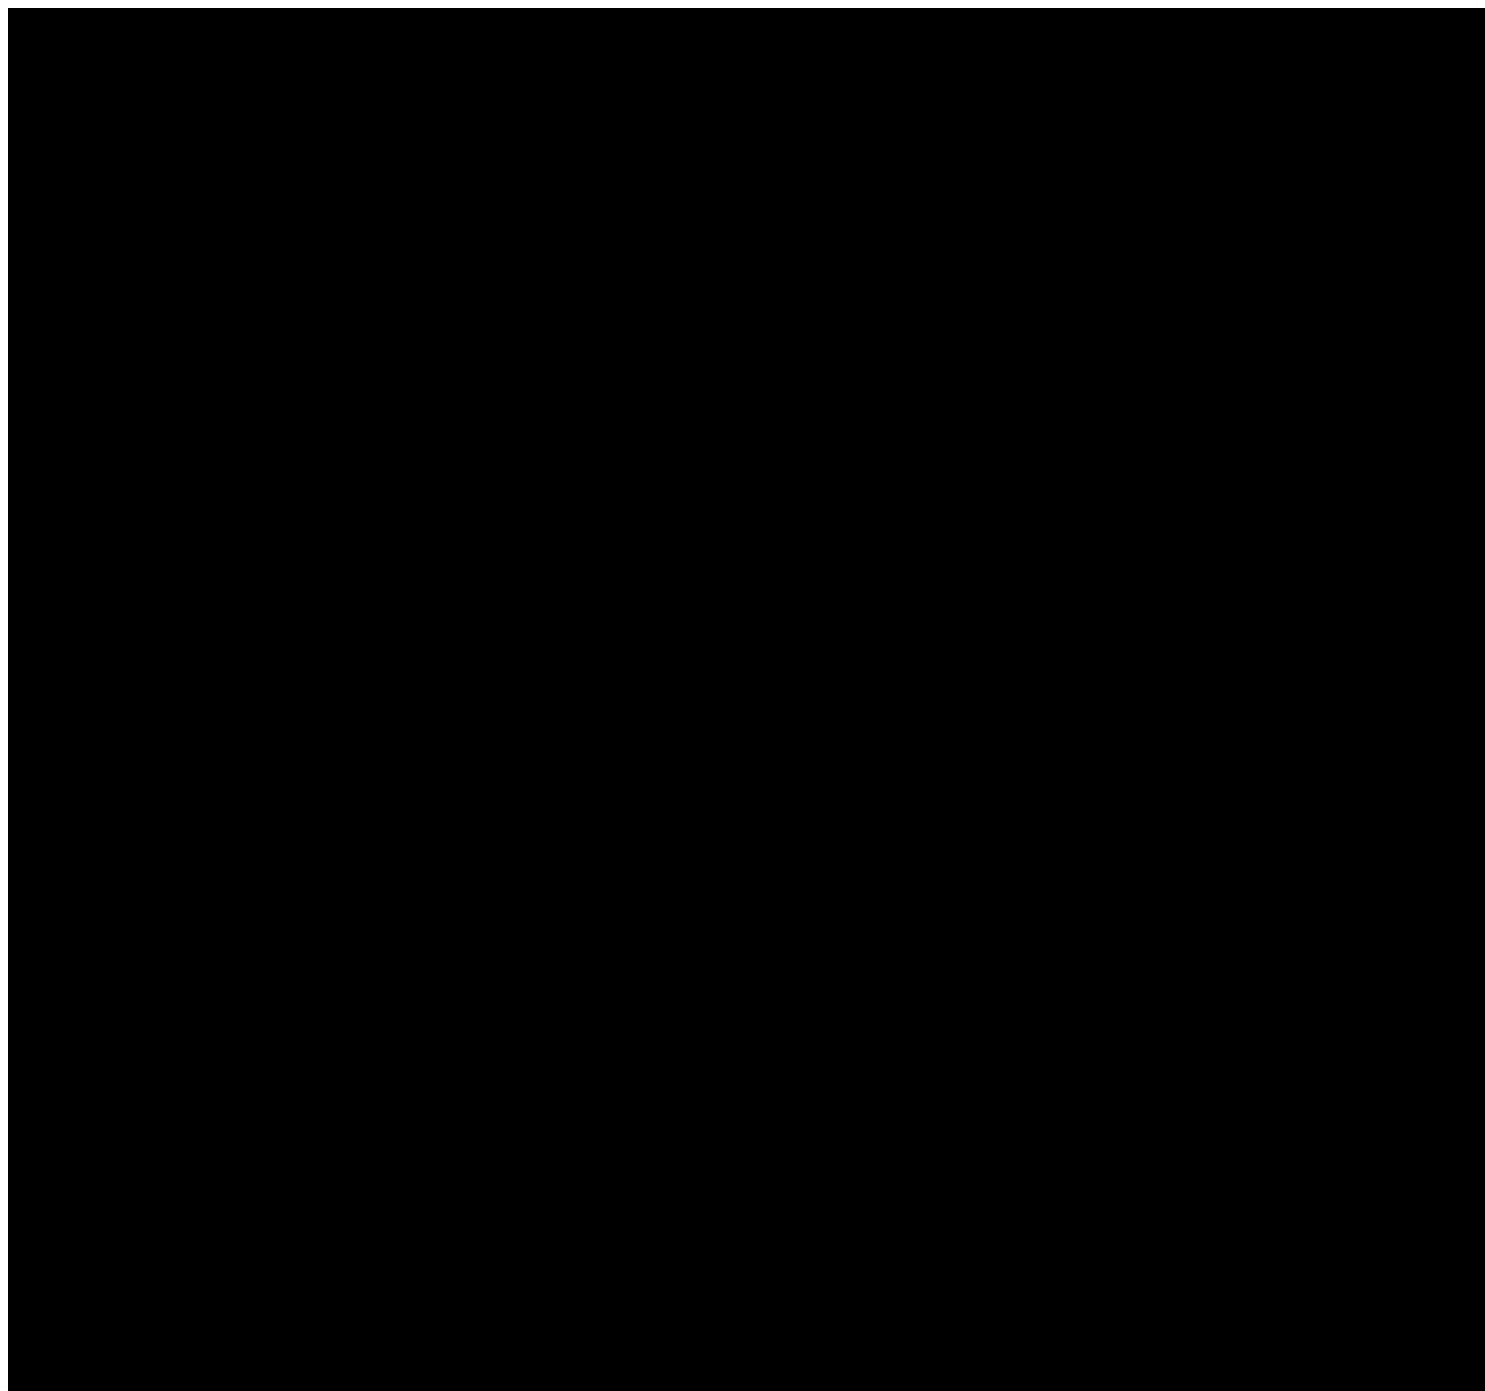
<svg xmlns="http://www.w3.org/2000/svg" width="1485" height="1391">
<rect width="100%" height="100%" fill="#fff"/>
<rect x="8" y="8" width="1477" height="1383" fill="#000"/>
</svg>
